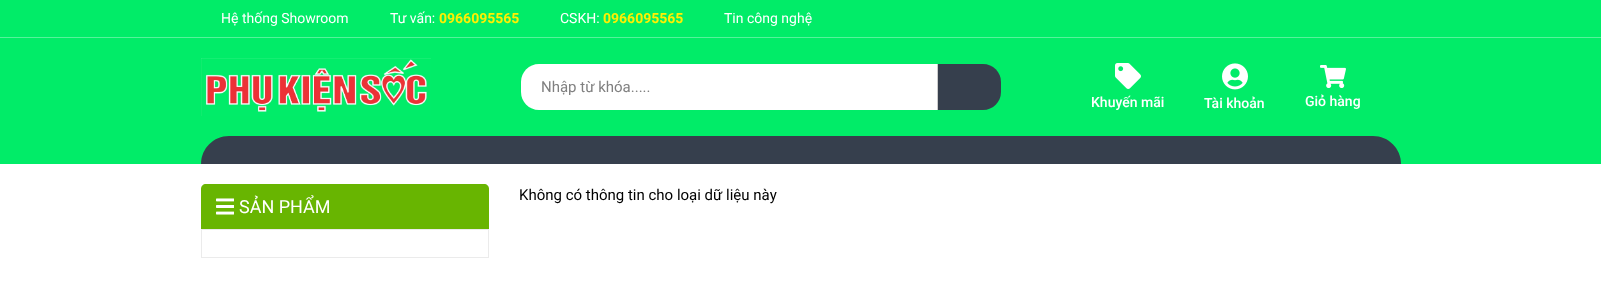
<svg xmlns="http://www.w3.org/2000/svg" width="1601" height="302">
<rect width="100%" height="100%" fill="#fff"/>
<rect width="1601" height="37" fill="#01ec68"/>
<rect y="37" width="1601" height="1" fill="#57f29b"/>
<text x="221" y="23" style="font-family:Roboto;font-size:14px;fill:#fff">Hệ thống Showroom</text>
<text x="390" y="23" style="font-family:Roboto;font-size:14px;fill:#fff">Tư vấn:</text>
<text x="439" y="23" style="font-family:Roboto;font-size:14px;font-weight:bold;fill:#fff000">0966095565</text>
<text x="560" y="23" style="font-family:Roboto;font-size:14px;fill:#fff">CSKH:</text>
<text x="603" y="23" style="font-family:Roboto;font-size:14px;font-weight:bold;fill:#fff000">0966095565</text>
<text x="724" y="23" style="font-family:Roboto;font-size:14px;fill:#fff">Tin công nghệ</text>
<rect y="38" width="1601" height="126" fill="#01ec68"/>
<image x="201" y="58" width="230" height="58" href="media/1.png"/>
<path d="M539 64h398v46h-398c-10 0-18-8-18-18v-10c0-10 8-18 18-18z" fill="#fff"/>
<rect x="937" y="64" width="1" height="46" fill="#ccc"/>
<text x="541" y="92" style="font-family:Roboto;font-size:15px;fill:#808080">Nhập từ khóa.....</text>
<path d="M938 64h45c10 0 18 8 18 18v10c0 10-8 18-18 18h-45z" fill="#363f4d"/>
<image x="1115" y="63" width="26" height="26" href="media/2.png"/>
<text x="1091" y="107" style="font-family:Roboto;font-size:14px;font-weight:500;fill:#fff">Khuyến mãi</text>
<image x="1222" y="63" width="26" height="27" href="media/3.png"/>
<text x="1204" y="108" style="font-family:Roboto;font-size:14px;font-weight:500;fill:#fff">Tài khoản</text>
<image x="1320" y="65" width="26" height="23" href="media/4.png"/>
<text x="1305" y="106" style="font-family:Roboto;font-size:14px;font-weight:500;fill:#fff">Giỏ hàng</text>
<path d="M229 136h1144c15.5 0 28 12.5 28 28h-1200c0-15.5 12.5-28 28-28z" fill="#363f4d"/>
<path d="M206 184h278c3 0 5 2 5 5v40h-288v-40c0-3 2-5 5-5z" fill="#68b501"/>
<image x="216" y="198" width="18" height="17" href="media/5.png"/>
<text x="239" y="213" style="font-family:Roboto;font-size:18px;fill:#fff">SẢN PHẨM</text>
<rect x="201.5" y="229.5" width="287" height="28" fill="none" stroke="#ebebeb"/>
<text x="519" y="200" style="font-family:Roboto;font-size:15px;fill:#000">Không có thông tin cho loại dữ liệu này</text>
</svg>
